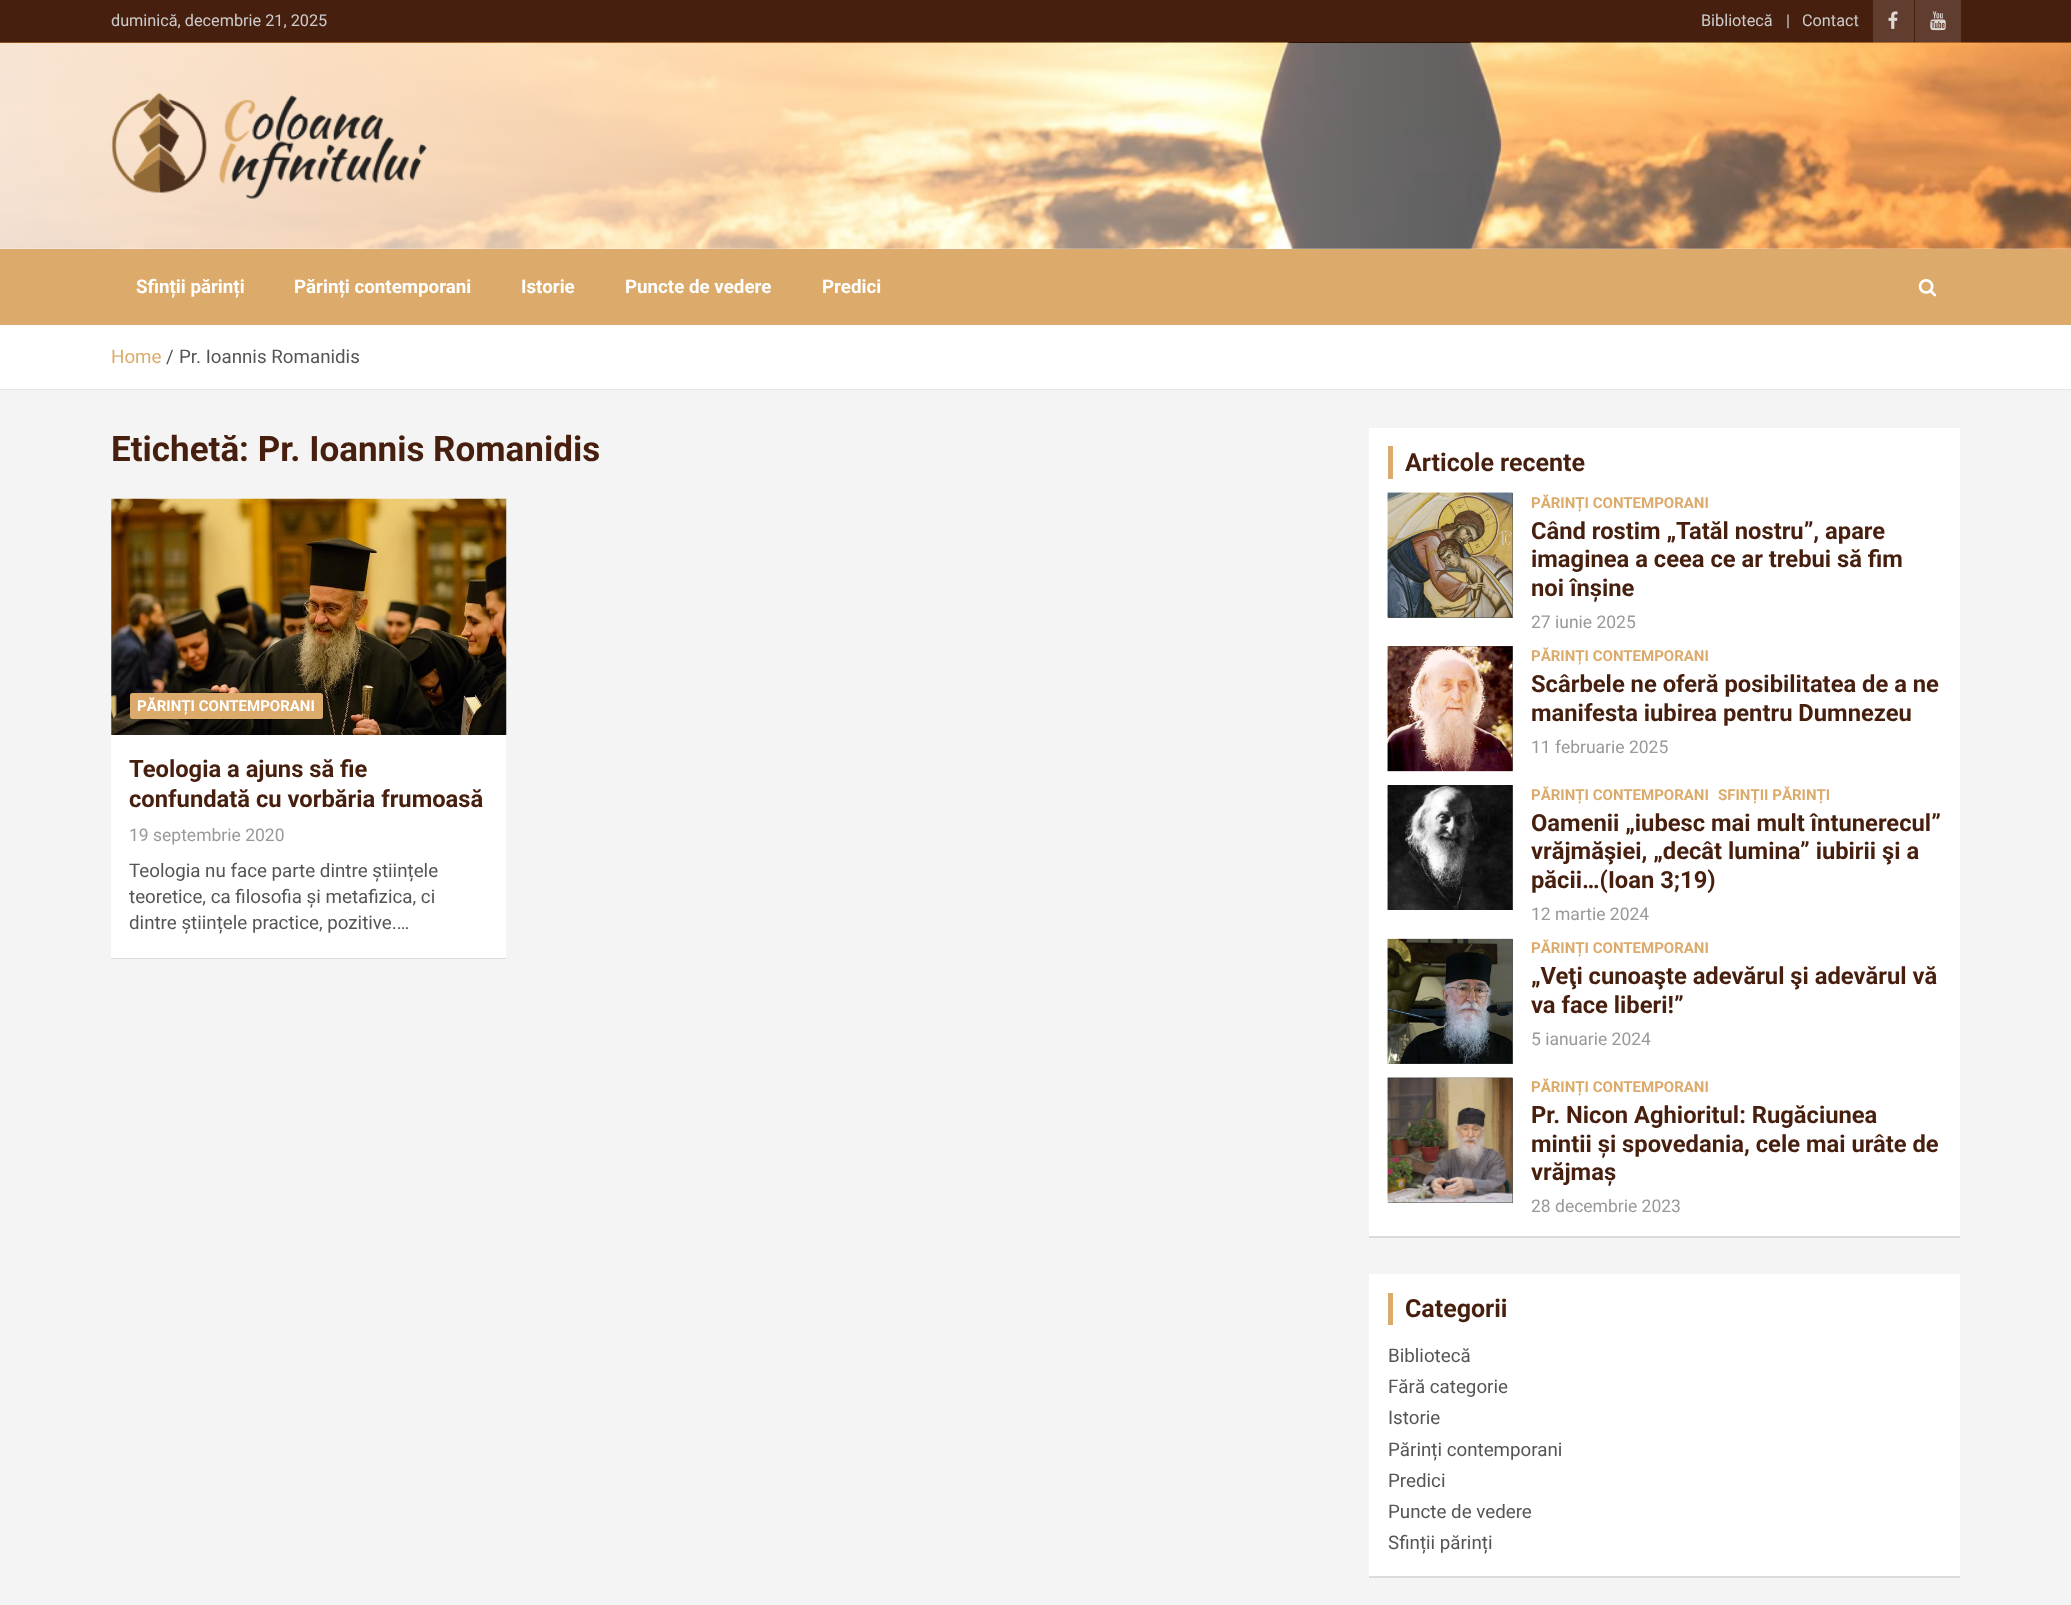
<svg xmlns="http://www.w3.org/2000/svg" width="2071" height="1605">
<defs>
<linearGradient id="g1" gradientUnits="userSpaceOnUse" x1="0" y1="146" x2="2071" y2="146"><stop offset="0" stop-color="#fff" stop-opacity="0.8"/><stop offset="1" stop-color="#fff" stop-opacity="0.2"/></linearGradient>
</defs>
<rect width="100%" height="100%" fill="#f4f4f4"/>
<rect width="2071" height="43" fill="#471f0e"/>
<text x="111" y="26" style="font-family:Roboto;font-size:16.25px;fill:#ccc">duminică, decembrie 21, 2025</text>
<text x="1701" y="26" style="font-family:Roboto;font-size:16.25px;fill:#ccc">Bibliotecă</text>
<text x="1786" y="26" style="font-family:Roboto;font-size:16.25px;fill:#ccc">|</text>
<text x="1802" y="26" style="font-family:Roboto;font-size:16.25px;fill:#ccc">Contact</text>
<rect x="1873" width="41" height="43" fill="#603d2f"/>
<image x="1888" y="11" width="10" height="18" href="media/1.png"/>
<rect x="1915" width="46" height="43" fill="#603d2f"/>
<image x="1930" y="11" width="16" height="20" href="media/2.png"/>
<image x="0" y="42" width="2071" height="207" href="media/3.png"/>
<rect y="43" width="2071" height="206" fill="url(#g1)"/>
<image x="111" y="92" width="316" height="107" href="media/4.png"/>
<rect y="249" width="2071" height="76" fill="#dcab6b"/>
<text x="136" y="293" style="font-family:Roboto;font-size:18.75px;font-weight:bold;fill:#fff">Sfinții părinți</text>
<text x="294" y="293" style="font-family:Roboto;font-size:18.75px;font-weight:bold;fill:#fff">Părinți contemporani</text>
<text x="521" y="293" style="font-family:Roboto;font-size:18.75px;font-weight:bold;fill:#fff">Istorie</text>
<text x="625" y="293" style="font-family:Roboto;font-size:18.75px;font-weight:bold;fill:#fff">Puncte de vedere</text>
<text x="822" y="293" style="font-family:Roboto;font-size:18.75px;font-weight:bold;fill:#fff">Predici</text>
<image x="1918" y="279" width="19" height="18" href="media/5.png"/>
<rect y="325" width="2071" height="64" fill="#fff"/>
<rect y="389" width="2071" height="1" fill="#e6e6e6"/>
<text x="111" y="363" style="font-family:Roboto;font-size:18.75px;fill:#dcab6b">Home</text>
<text x="166" y="363" style="font-family:Roboto;font-size:18.75px;fill:#555">/</text>
<text x="179" y="363" style="font-family:Roboto;font-size:18.75px;fill:#555">Pr. Ioannis Romanidis</text>
<text x="111" y="461" style="font-family:Roboto;font-size:35px;font-weight:bold;fill:#471f0e">Etichetă: Pr. Ioannis Romanidis</text>
<rect x="111" y="500" width="395" height="459" fill="#0000001a" filter="blur(0.5px)"/>
<rect x="111" y="499" width="395" height="459" fill="#fff"/>
<image x="111" y="498" width="396" height="237" href="media/6.png"/>
<rect x="130" y="693" width="193" height="26" rx="2.5" fill="#dcab6b"/>
<text x="137" y="711" style="font-family:Roboto;font-size:15px;font-weight:bold;fill:#fff">PĂRINȚI CONTEMPORANI</text>
<text x="129" y="777" style="font-family:Roboto;font-size:23.75px;font-weight:bold;fill:#471f0e">Teologia a ajuns să fie</text>
<text x="129" y="807" style="font-family:Roboto;font-size:23.75px;font-weight:bold;fill:#471f0e">confundată cu vorbăria frumoasă</text>
<text x="129" y="841" style="font-family:Roboto;font-size:17.5px;fill:#999">19 septembrie 2020</text>
<text x="129" y="877" style="font-family:Roboto;font-size:18.75px;fill:#555">Teologia nu face parte dintre științele</text>
<text x="129" y="903" style="font-family:Roboto;font-size:18.75px;fill:#555">teoretice, ca filosofia și metafizica, ci</text>
<text x="129" y="929" style="font-family:Roboto;font-size:18.75px;fill:#555">dintre științele practice, pozitive.…</text>
<rect x="1369" y="429" width="591" height="809" fill="#0000001a" filter="blur(0.5px)"/>
<rect x="1369" y="428" width="591" height="808" fill="#fff"/>
<rect x="1388" y="446" width="5" height="33" fill="#dcab6b"/>
<text x="1405" y="471" style="font-family:Roboto;font-size:25px;font-weight:bold;fill:#471f0e">Articole recente</text>
<rect x="1388" y="493" width="125" height="125" fill="#555"/>
<image x="1387" y="492" width="126" height="126" href="media/7.png"/>
<text x="1531" y="508" style="font-family:Roboto;font-size:15px;font-weight:bold;fill:#dcab6b">PĂRINȚI CONTEMPORANI</text>
<text x="1531" y="539" style="font-family:Roboto;font-size:23.75px;font-weight:bold;fill:#471f0e">Când rostim „Tatăl nostru”, apare</text>
<text x="1531" y="567" style="font-family:Roboto;font-size:23.75px;font-weight:bold;fill:#471f0e">imaginea a ceea ce ar trebui să fim</text>
<text x="1531" y="596" style="font-family:Roboto;font-size:23.75px;font-weight:bold;fill:#471f0e">noi înșine</text>
<text x="1531" y="628" style="font-family:Roboto;font-size:17.5px;fill:#999">27 iunie 2025</text>
<rect x="1388" y="646" width="125" height="125" fill="#555"/>
<image x="1387" y="646" width="126" height="126" href="media/8.png"/>
<text x="1531" y="661" style="font-family:Roboto;font-size:15px;font-weight:bold;fill:#dcab6b">PĂRINȚI CONTEMPORANI</text>
<text x="1531" y="692" style="font-family:Roboto;font-size:23.75px;font-weight:bold;fill:#471f0e">Scârbele ne oferă posibilitatea de a ne</text>
<text x="1531" y="721" style="font-family:Roboto;font-size:23.75px;font-weight:bold;fill:#471f0e">manifesta iubirea pentru Dumnezeu</text>
<text x="1531" y="753" style="font-family:Roboto;font-size:17.5px;fill:#999">11 februarie 2025</text>
<rect x="1512" y="785" width="1" height="125" fill="#555"/>
<image x="1387" y="785" width="126" height="125" href="media/9.png"/>
<text x="1531" y="800" style="font-family:Roboto;font-size:15px;font-weight:bold;fill:#dcab6b">PĂRINȚI CONTEMPORANI</text>
<text x="1718" y="800" style="font-family:Roboto;font-size:15px;font-weight:bold;fill:#dcab6b">SFINȚII PĂRINȚI</text>
<text x="1531" y="831" style="font-family:Roboto;font-size:23.75px;font-weight:bold;fill:#471f0e">Oamenii „iubesc mai mult întunerecul”</text>
<text x="1531" y="859" style="font-family:Roboto;font-size:23.75px;font-weight:bold;fill:#471f0e">vrăjmăşiei, „decât lumina” iubirii şi a</text>
<text x="1531" y="888" style="font-family:Roboto;font-size:23.75px;font-weight:bold;fill:#471f0e">păcii…(Ioan 3;19)</text>
<text x="1531" y="920" style="font-family:Roboto;font-size:17.5px;fill:#999">12 martie 2024</text>
<rect x="1388" y="939" width="125" height="125" fill="#555"/>
<image x="1387" y="938" width="126" height="126" href="media/10.png"/>
<text x="1531" y="953" style="font-family:Roboto;font-size:15px;font-weight:bold;fill:#dcab6b">PĂRINȚI CONTEMPORANI</text>
<text x="1531" y="984" style="font-family:Roboto;font-size:23.75px;font-weight:bold;fill:#471f0e">„Veţi cunoaşte adevărul şi adevărul vă</text>
<text x="1531" y="1013" style="font-family:Roboto;font-size:23.75px;font-weight:bold;fill:#471f0e">va face liberi!”</text>
<text x="1531" y="1045" style="font-family:Roboto;font-size:17.5px;fill:#999">5 ianuarie 2024</text>
<rect x="1388" y="1078" width="125" height="125" fill="#555"/>
<image x="1387" y="1077" width="126" height="126" href="media/11.png"/>
<text x="1531" y="1092" style="font-family:Roboto;font-size:15px;font-weight:bold;fill:#dcab6b">PĂRINȚI CONTEMPORANI</text>
<text x="1531" y="1123" style="font-family:Roboto;font-size:23.75px;font-weight:bold;fill:#471f0e">Pr. Nicon Aghioritul: Rugăciunea</text>
<text x="1531" y="1152" style="font-family:Roboto;font-size:23.75px;font-weight:bold;fill:#471f0e">mintii și spovedania, cele mai urâte de</text>
<text x="1531" y="1180" style="font-family:Roboto;font-size:23.75px;font-weight:bold;fill:#471f0e">vrăjmaș</text>
<text x="1531" y="1212" style="font-family:Roboto;font-size:17.5px;fill:#999">28 decembrie 2023</text>
<rect x="1369" y="1275" width="591" height="303" fill="#0000001a" filter="blur(0.5px)"/>
<rect x="1369" y="1274" width="591" height="302" fill="#fff"/>
<rect x="1388" y="1293" width="5" height="32" fill="#dcab6b"/>
<text x="1405" y="1317" style="font-family:Roboto;font-size:25px;font-weight:bold;fill:#471f0e">Categorii</text>
<text x="1388" y="1362" style="font-family:Roboto;font-size:18.75px;fill:#555">Bibliotecă</text>
<text x="1388" y="1393" style="font-family:Roboto;font-size:18.75px;fill:#555">Fără categorie</text>
<text x="1388" y="1424" style="font-family:Roboto;font-size:18.75px;fill:#555">Istorie</text>
<text x="1388" y="1456" style="font-family:Roboto;font-size:18.75px;fill:#555">Părinți contemporani</text>
<text x="1388" y="1487" style="font-family:Roboto;font-size:18.75px;fill:#555">Predici</text>
<text x="1388" y="1518" style="font-family:Roboto;font-size:18.75px;fill:#555">Puncte de vedere</text>
<text x="1388" y="1549" style="font-family:Roboto;font-size:18.75px;fill:#555">Sfinții părinți</text>
</svg>
